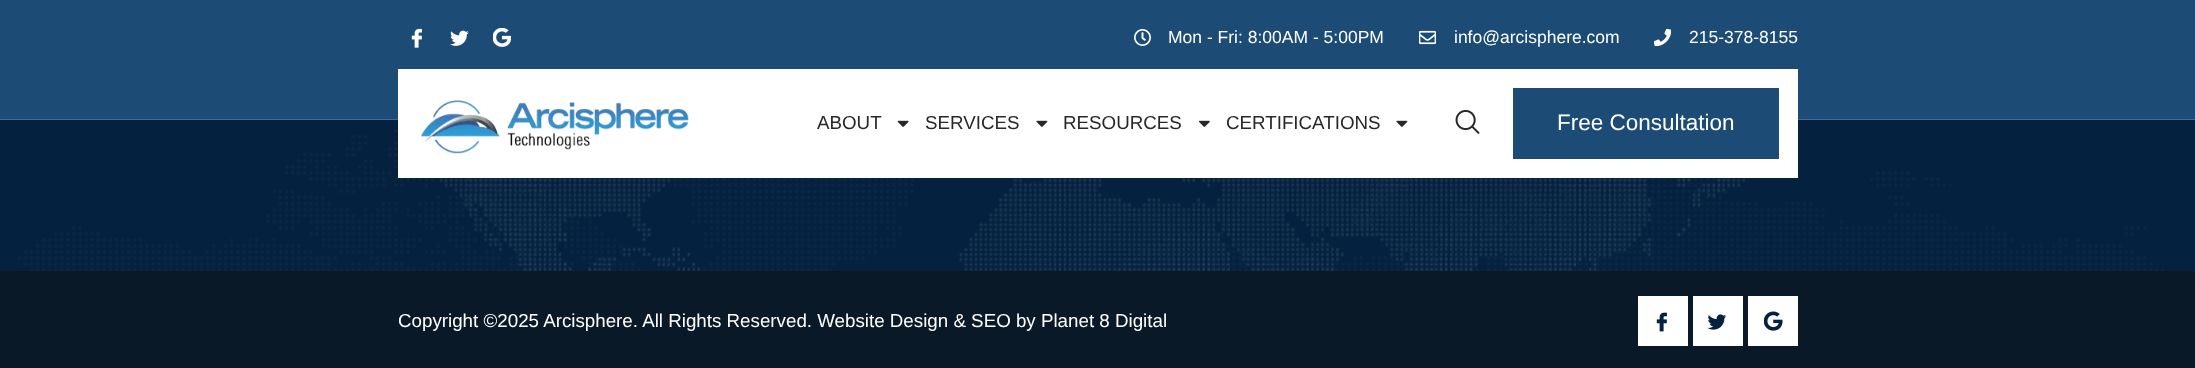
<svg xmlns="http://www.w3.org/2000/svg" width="2195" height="368">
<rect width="100%" height="100%" fill="#04213f"/>
<rect width="2195" height="119" fill="#1c4c76"/>
<rect y="119" width="2195" height="1" fill="#436a8d"/>
<image x="411" y="28" width="11" height="20" href="media/1.png"/>
<image x="450" y="30" width="19" height="16" href="media/2.png"/>
<image x="493" y="28" width="18" height="19" href="media/3.png"/>
<image x="1134" y="29" width="17" height="17" href="media/4.png"/>
<text x="1168" y="43" style="font-family:Liberation Sans;font-size:17.5px;fill:#fff">Mon - Fri: 8:00AM - 5:00PM</text>
<image x="1419" y="30" width="17" height="15" href="media/5.png"/>
<text x="1454" y="43" style="font-family:Liberation Sans;font-size:17.5px;fill:#fff">info@arcisphere.com</text>
<image x="1654" y="29" width="17" height="17" href="media/6.png"/>
<text x="1689" y="43" style="font-family:Liberation Sans;font-size:17.5px;fill:#fff">215-378-8155</text>
<image x="439" y="178" width="1306" height="93" href="media/12.png"/>
<image x="18" y="129" width="2146" height="142" href="media/13.png"/>
<rect x="398" y="69" width="1400" height="109" fill="#fff"/>
<image x="421" y="100" width="268" height="54" href="media/7.png"/>
<text x="817" y="129" style="font-family:Liberation Sans;font-size:18.75px;fill:#282828">ABOUT</text>
<image x="897" y="120" width="12" height="7" href="media/8.png"/>
<text x="925" y="129" style="font-family:Liberation Sans;font-size:18.75px;fill:#282828">SERVICES</text>
<image x="1036" y="120" width="12" height="7" href="media/9.png"/>
<text x="1063" y="129" style="font-family:Liberation Sans;font-size:18.75px;fill:#282828">RESOURCES</text>
<image x="1199" y="120" width="11" height="7" href="media/10.png"/>
<text x="1226" y="129" style="font-family:Liberation Sans;font-size:18.75px;fill:#282828">CERTIFICATIONS</text>
<image x="1396" y="120" width="12" height="7" href="media/9.png"/>
<image x="1455" y="109" width="25" height="25" href="media/11.png"/>
<rect x="1513" y="88" width="266" height="71" fill="#1c4c76"/>
<text x="1557" y="130" style="font-family:Liberation Sans;font-size:22.5px;fill:#fff">Free Consultation</text>
<rect y="271" width="2195" height="97" fill="#0a1928"/>
<text x="398" y="327" style="font-family:Liberation Sans;font-size:18.75px;fill:#fff">Copyright ©2025 Arcisphere. All Rights Reserved. Website Design &amp; SEO by Planet 8 Digital</text>
<rect x="1638" y="296" width="50" height="50" fill="#fff"/>
<image x="1656" y="312" width="11" height="20" href="media/14.png"/>
<rect x="1693" y="296" width="50" height="50" fill="#fff"/>
<image x="1707" y="314" width="20" height="16" href="media/15.png"/>
<rect x="1748" y="296" width="50" height="50" fill="#fff"/>
<image x="1764" y="311" width="19" height="20" href="media/16.png"/>
</svg>
